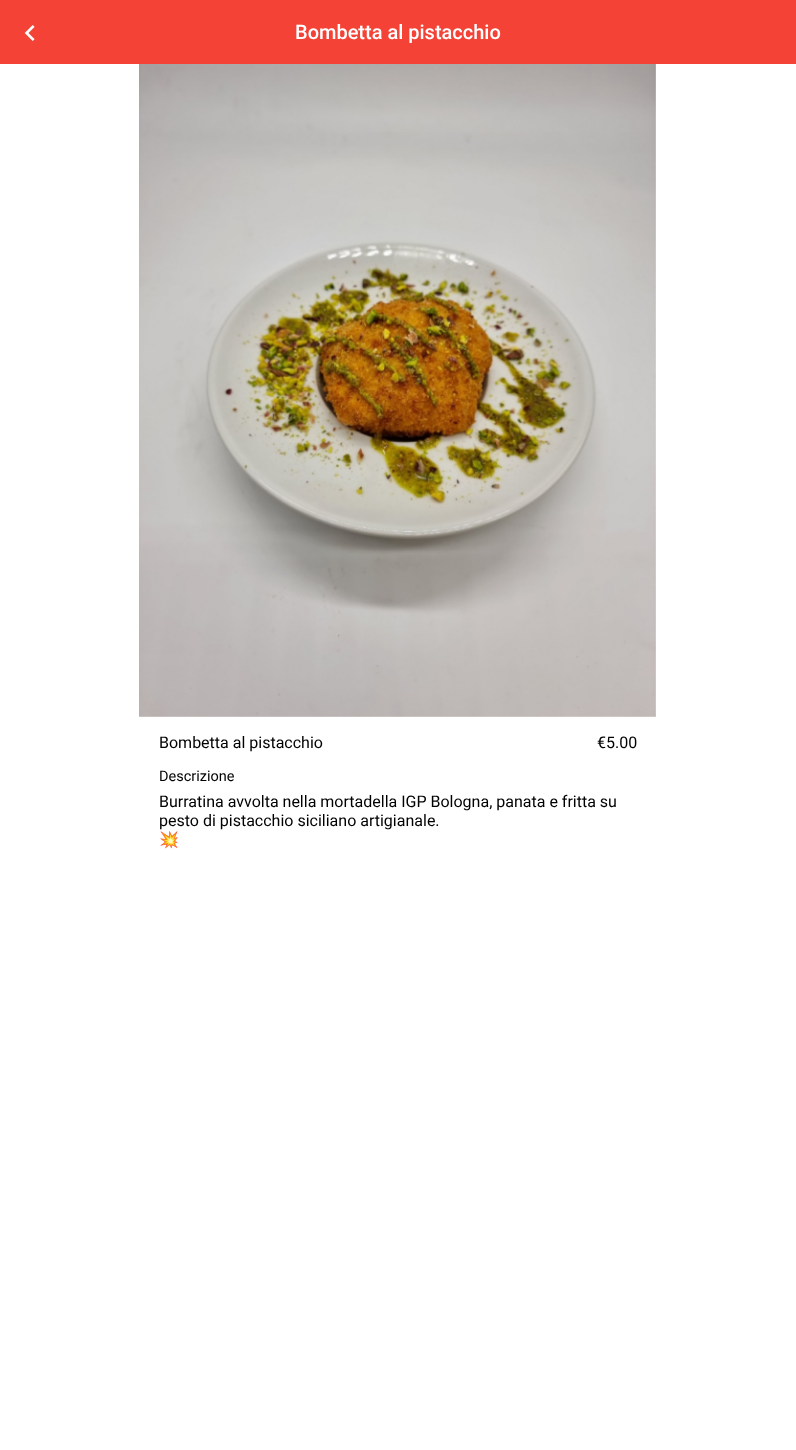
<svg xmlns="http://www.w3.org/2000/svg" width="796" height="1450">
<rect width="100%" height="100%" fill="#fff"/>
<rect width="796" height="64" fill="#f44336"/>
<image x="24" y="25" width="11" height="16" href="media/1.png"/>
<text x="295" y="39" style="font-family:Roboto;font-size:20px;font-weight:500;fill:#fff">Bombetta al pistacchio</text>
<image x="139" y="64" width="517" height="653" href="media/2.png"/>
<text x="159" y="748" style="font-family:Roboto;font-size:16px;fill:#000">Bombetta al pistacchio</text>
<text x="597" y="748" style="font-family:Roboto;font-size:16px;fill:#000">€5.00</text>
<text x="159" y="781" style="font-family:Roboto;font-size:14.5px;fill:#000">Descrizione</text>
<text x="159" y="807" style="font-family:Roboto;font-size:16px;fill:#000">Burratina avvolta nella mortadella IGP Bologna, panata e fritta su</text>
<text x="159" y="826" style="font-family:Roboto;font-size:16px;fill:#000">pesto di pistacchio siciliano artigianale.</text>
<text x="159" y="845" style="font-family:Noto Color Emoji;font-size:16px;fill:#000">💥</text>
</svg>
